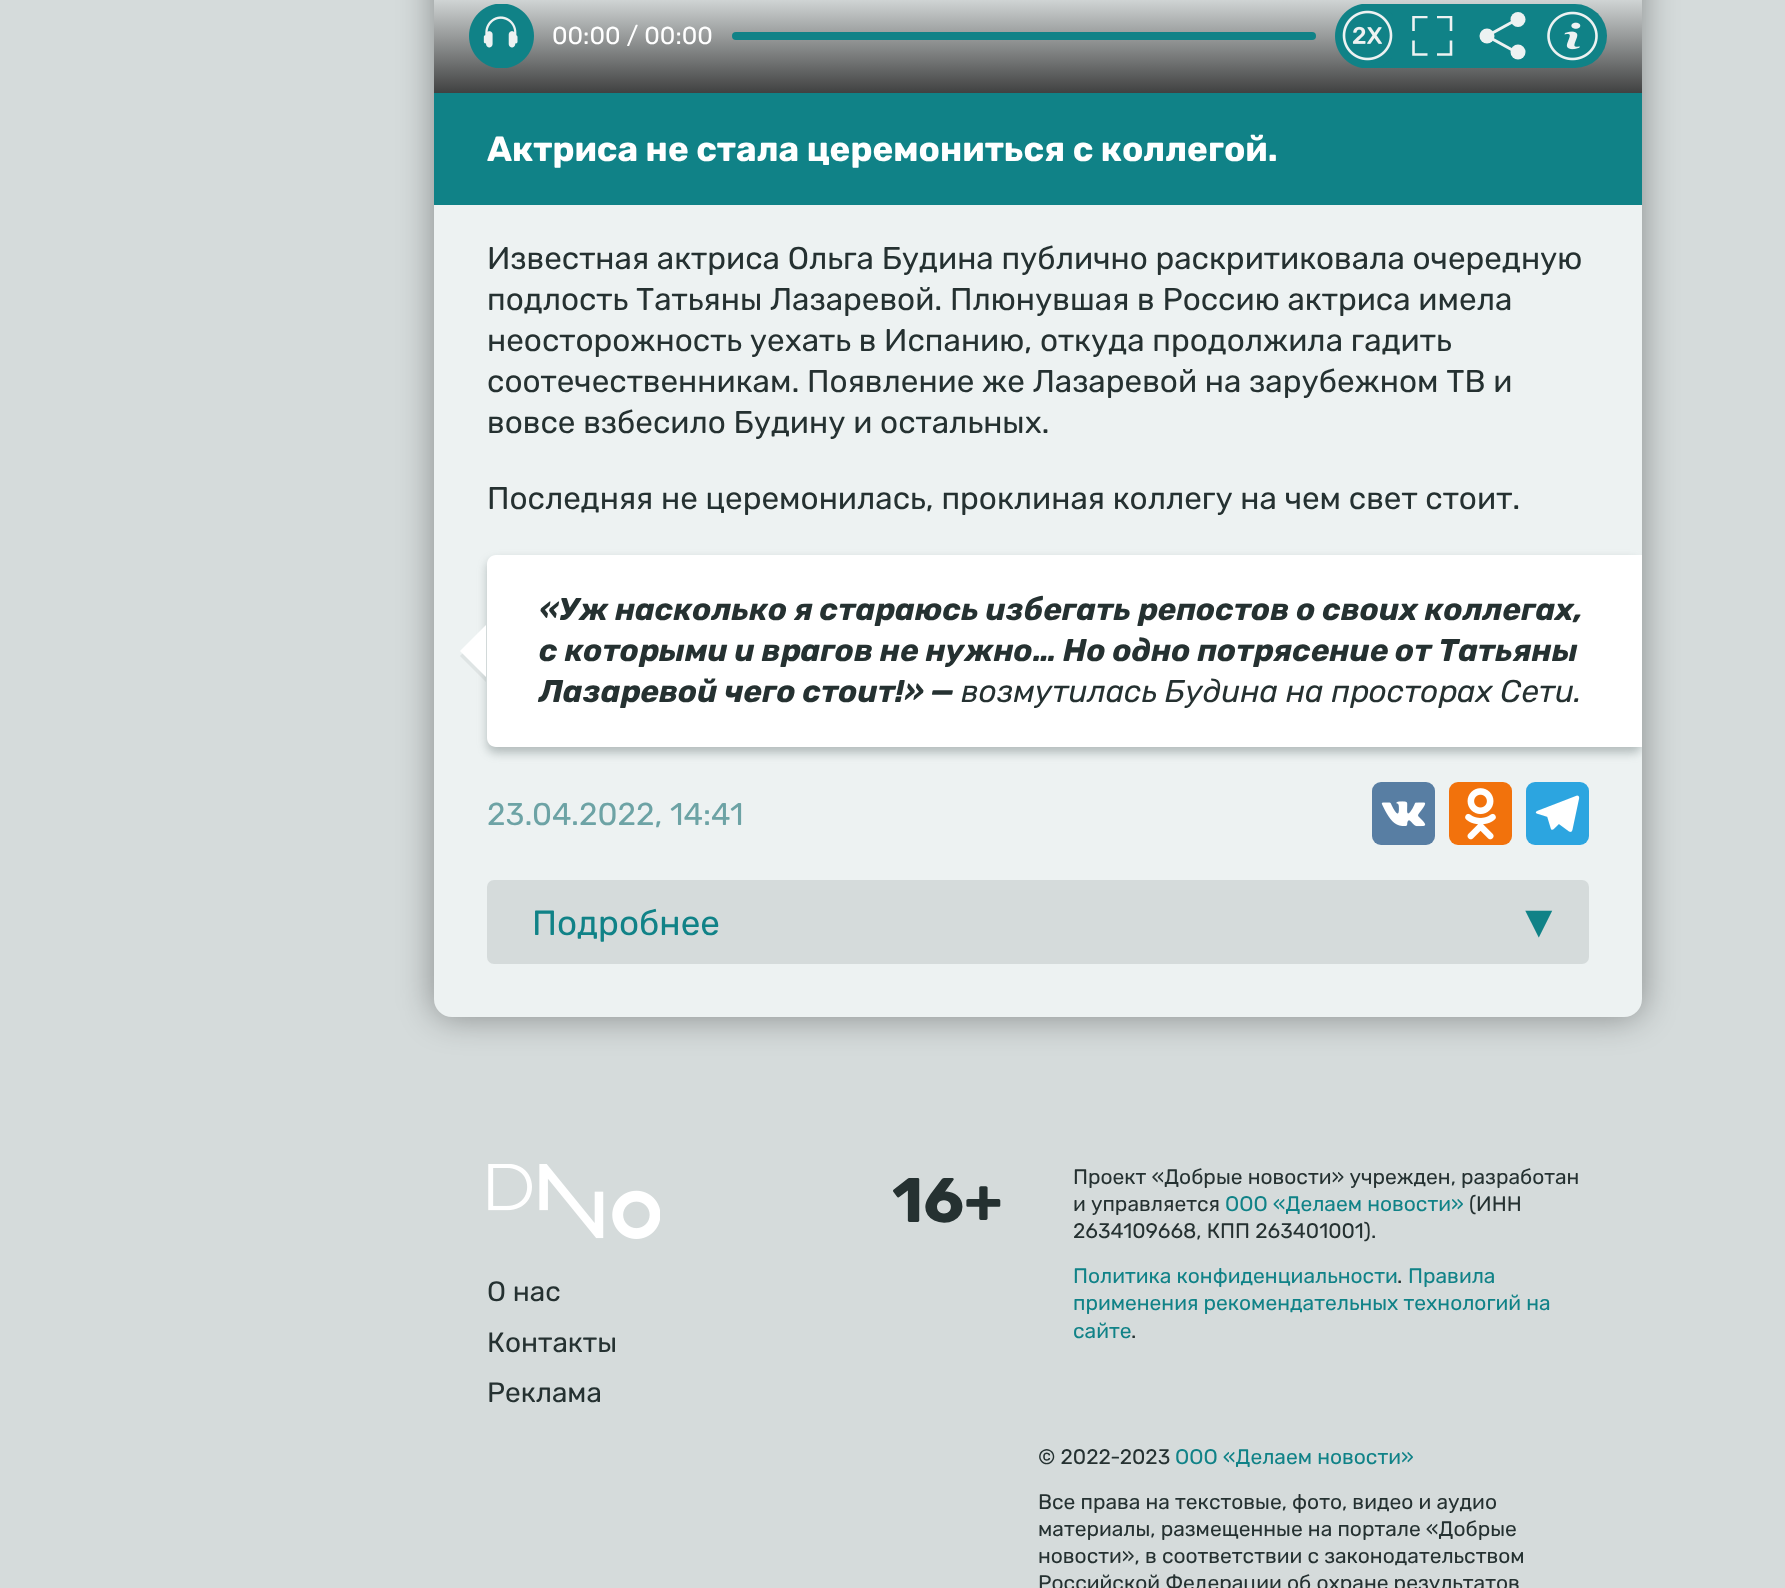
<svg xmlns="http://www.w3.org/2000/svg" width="1785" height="1588">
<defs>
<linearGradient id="g1" gradientUnits="userSpaceOnUse" x1="1038" y1="-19" x2="1038" y2="93"><stop offset="0" stop-color="#edf2f2"/><stop offset="1" stop-color="#404141"/></linearGradient>
<clipPath id="clip1"><rect x="1412" y="16" width="41" height="40"/></clipPath>
<clipPath id="clip2"><rect x="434" y="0" width="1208" height="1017"/></clipPath>
</defs>
<rect width="100%" height="100%" fill="#d5dbdb"/>
<rect x="434" y="-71" width="1208" height="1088" rx="18" fill="#0000005e" filter="blur(17.5px)"/>
<rect x="434" y="-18" width="1208" height="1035" rx="18" fill="#edf2f2"/>
<rect x="434" width="1208" height="93" fill="url(#g1)"/>
<rect x="1339" y="4" width="268" height="64" rx="32" fill="#108287"/>
<path d="M1451 40.5v14h-14m-23.5-14v14h14" fill="none" stroke="#edf2f2" stroke-width="2.6"/>
<g clip-path="url(#clip1)">
<path d="M1451 31v-14h-14m-23.5 14v-14h14" fill="none" stroke="#edf2f2" stroke-width="2.6"/>
</g>
<circle cx="1487" cy="36" r="7.5" fill="#edf2f2"/>
<circle cx="1518" cy="19.5" r="7.5" fill="#edf2f2"/>
<circle cx="1518" cy="52" r="7.5" fill="#edf2f2"/>
<path d="M1520.5 17.5l-33.5 18.5l33.5 18.5" fill="none" stroke="#edf2f2" stroke-width="3"/>
<image x="1547" y="11" width="51" height="50" href="media/1.png"/>
<image x="469" y="4" width="65" height="64" href="media/2.png"/>
<text x="552" y="44" style="font-family:Rubik;font-size:24.5px;fill:#fff">00:00 / 00:00</text>
<rect x="732" y="32" width="584" height="8" rx="4" fill="#108287"/>
<image x="1335" y="4" width="58" height="64" href="media/3.png"/>
<rect x="434" y="93" width="1208" height="112" fill="#108287"/>
<text x="487" y="161" style="font-family:Rubik;font-size:35px;font-weight:bold;fill:#fff">Актриса не стала церемониться с коллегой.</text>
<text x="487" y="269" style="font-family:Rubik;font-size:31.5px;fill:#253131">Известная актриса Ольга Будина публично раскритиковала очередную</text>
<text x="487" y="310" style="font-family:Rubik;font-size:31.5px;fill:#253131">подлость Татьяны Лазаревой. Плюнувшая в Россию актриса имела</text>
<text x="487" y="351" style="font-family:Rubik;font-size:31.5px;fill:#253131">неосторожность уехать в Испанию, откуда продолжила гадить</text>
<text x="487" y="392" style="font-family:Rubik;font-size:31.5px;fill:#253131">соотечественникам. Появление же Лазаревой на зарубежном ТВ и</text>
<text x="487" y="433" style="font-family:Rubik;font-size:31.5px;fill:#253131">вовсе взбесило Будину и остальных.</text>
<text x="487" y="509" style="font-family:Rubik;font-size:31.5px;fill:#253131">Последняя не церемонилась, проклиная коллегу на чем свет стоит.</text>
<g clip-path="url(#clip2)">
<rect x="487" y="560" width="1155" height="193" rx="9" fill="#5e6e6e66" filter="blur(5px)"/>
</g>
<path d="M496 555h1146v192h-1146c-5 0-9-4-9-9v-174c0-5 4-9 9-9z" fill="#fff"/>
<path d="M486 630v52l-26-26z" fill="#5e6e6e1a"/>
<path d="M486 625v52l-26-26z" fill="#fff"/>
<text x="539" y="620" style="font-family:Rubik;font-size:31.5px;font-weight:bold;font-style:italic;fill:#253131">«Уж насколько я стараюсь избегать репостов о своих коллегах,</text>
<text x="539" y="661" style="font-family:Rubik;font-size:31.5px;font-weight:bold;font-style:italic;fill:#253131">с которыми и врагов не нужно… Но одно потрясение от Татьяны</text>
<text x="539" y="702" style="font-family:Rubik;font-size:31.5px;font-weight:bold;font-style:italic;fill:#253131">Лазаревой чего стоит!» —</text>
<text x="961" y="702" style="font-family:Rubik;font-size:31.5px;font-style:italic;fill:#253131">возмутилась Будина на просторах Сети.</text>
<text x="487" y="825" style="font-family:Rubik;font-size:31.5px;fill:#6da3a5">23.04.2022, 14:41</text>
<rect x="1372" y="782" width="63" height="63" rx="9" fill="#587ea3"/>
<image x="1381" y="801" width="45" height="26" href="media/4.png"/>
<rect x="1449" y="782" width="63" height="63" rx="9" fill="#f2720c"/>
<image x="1465" y="788" width="31" height="52" href="media/5.png"/>
<rect x="1526" y="782" width="63" height="63" rx="9" fill="#2ca5e0"/>
<image x="1535" y="795" width="45" height="37" href="media/6.png"/>
<rect x="488" y="881" width="1100" height="82" rx="6" fill="#d5dbdb" stroke="#d5dbdb" stroke-width="2"/>
<text x="532" y="935" style="font-family:Rubik;font-size:35px;fill:#108287">Подробнее</text>
<text x="1516" y="937" style="font-family:Liberation Sans;font-size:46px;fill:#108287">▼</text>
<image x="488" y="1164" width="172" height="75" href="media/7.png"/>
<text x="892" y="1222" style="font-family:Rubik;font-size:63px;font-weight:bold;fill:#253131">16+</text>
<text x="487" y="1301" style="font-family:Rubik;font-size:28px;fill:#253131">О нас</text>
<text x="487" y="1352" style="font-family:Rubik;font-size:28px;fill:#253131">Контакты</text>
<text x="487" y="1402" style="font-family:Rubik;font-size:28px;fill:#253131">Реклама</text>
<text x="1073" y="1184" style="font-family:Rubik;font-size:21px;fill:#253131">Проект «Добрые новости» учрежден, разработан</text>
<text x="1073" y="1211" style="font-family:Rubik;font-size:21px;fill:#253131">и управляется</text>
<text x="1225" y="1211" style="font-family:Rubik;font-size:21px;fill:#108287">ООО «Делаем новости»</text>
<text x="1469" y="1211" style="font-family:Rubik;font-size:21px;fill:#253131">(ИНН</text>
<text x="1073" y="1238" style="font-family:Rubik;font-size:21px;fill:#253131">2634109668, КПП 263401001).</text>
<text x="1073" y="1283" style="font-family:Rubik;font-size:21px;fill:#108287">Политика конфиденциальности</text>
<text x="1397" y="1283" style="font-family:Rubik;font-size:21px;fill:#253131">.</text>
<text x="1408" y="1283" style="font-family:Rubik;font-size:21px;fill:#108287">Правила</text>
<text x="1073" y="1310" style="font-family:Rubik;font-size:21px;fill:#108287">применения рекомендательных технологий на</text>
<text x="1073" y="1338" style="font-family:Rubik;font-size:21px;fill:#108287">сайте</text>
<text x="1131" y="1338" style="font-family:Rubik;font-size:21px;fill:#253131">.</text>
<text x="1038" y="1464" style="font-family:Rubik;font-size:21px;fill:#253131">© 2022-2023</text>
<text x="1175" y="1464" style="font-family:Rubik;font-size:21px;fill:#108287">ООО «Делаем новости»</text>
<text x="1038" y="1509" style="font-family:Rubik;font-size:21px;fill:#253131">Все права на текстовые, фото, видео и аудио</text>
<text x="1038" y="1536" style="font-family:Rubik;font-size:21px;fill:#253131">материалы, размещенные на портале «Добрые</text>
<text x="1038" y="1563" style="font-family:Rubik;font-size:21px;fill:#253131">новости», в соответствии с законодательством</text>
<text x="1038" y="1590" style="font-family:Rubik;font-size:21px;fill:#253131">Российской Федерации об охране результатов</text>
</svg>
